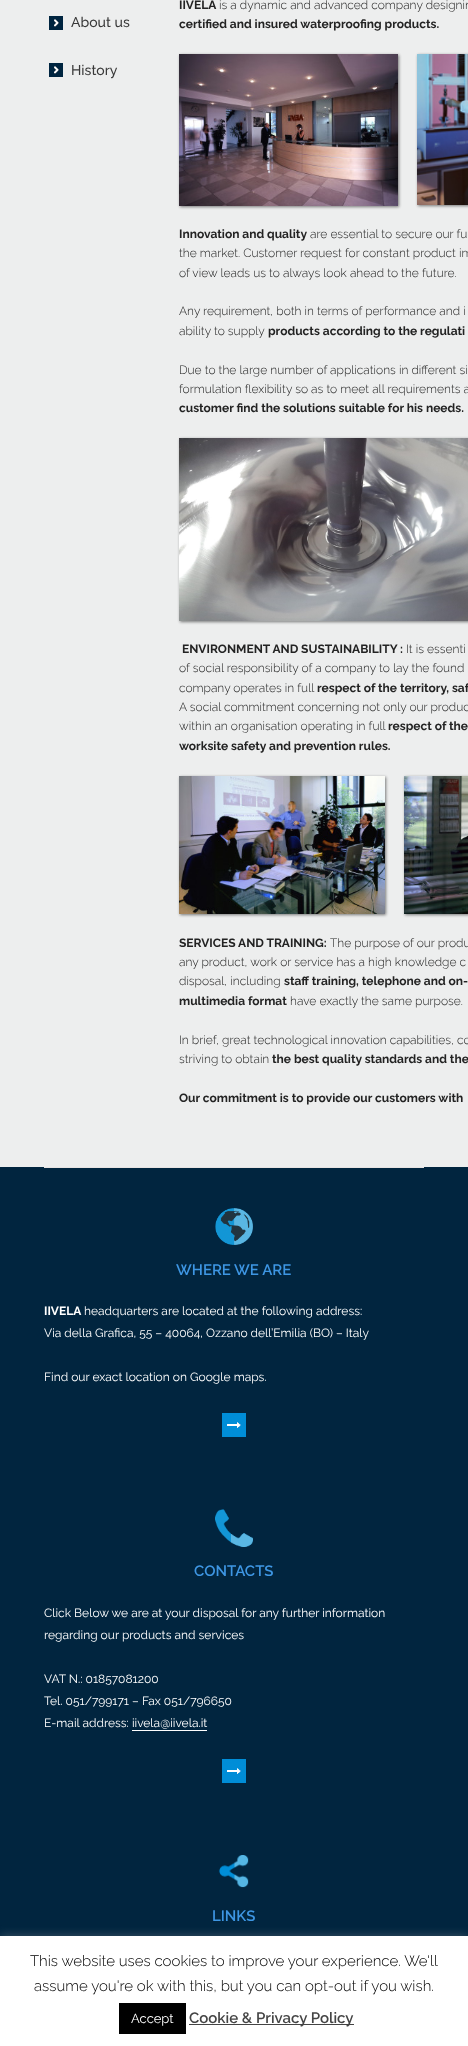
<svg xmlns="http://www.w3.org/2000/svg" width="468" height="2046">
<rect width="100%" height="100%" fill="#edeeee"/>
<image x="49" y="16" width="14" height="14" href="media/1.png"/>
<text x="71" y="27" style="font-family:Raleway;font-size:14px;font-weight:500;fill:#393939">About us</text>
<image x="49" y="63" width="14" height="14" href="media/1.png"/>
<text x="71" y="75" style="font-family:Raleway;font-size:14px;font-weight:500;fill:#393939">History</text>
<text x="179" y="9" style="font-family:Raleway;font-size:12px;font-weight:bold;fill:#232323">IIVELA</text>
<text x="219" y="9" style="font-family:Raleway;font-size:12px;font-weight:300;fill:#232323">is a dynamic and advanced company designin</text>
<text x="179" y="28" style="font-family:Raleway;font-size:12px;font-weight:bold;fill:#232323">certified and insured waterproofing products.</text>
<rect x="180" y="55" width="219" height="152" fill="#787878" filter="blur(1.5px)"/>
<image x="179" y="54" width="219" height="152" href="media/2.png"/>
<rect x="418" y="55" width="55" height="151" fill="#787878" filter="blur(1.5px)"/>
<image x="417" y="54" width="51" height="151" href="media/3.png"/>
<text x="179" y="238" style="font-family:Raleway;font-size:12px;font-weight:bold;fill:#232323">Innovation and quality</text>
<text x="310" y="238" style="font-family:Raleway;font-size:12px;font-weight:300;fill:#232323">are essential to secure our fu</text>
<text x="179" y="257" style="font-family:Raleway;font-size:12px;font-weight:300;fill:#232323">the market. Customer request for constant product im</text>
<text x="179" y="277" style="font-family:Raleway;font-size:12px;font-weight:300;fill:#232323">of view leads us to always look ahead to the future.</text>
<text x="179" y="315" style="font-family:Raleway;font-size:12px;font-weight:300;fill:#232323">Any requirement, both in terms of performance and i</text>
<text x="179" y="335" style="font-family:Raleway;font-size:12px;font-weight:300;fill:#232323">ability to supply</text>
<text x="268" y="335" style="font-family:Raleway;font-size:12px;font-weight:bold;fill:#232323">products according to the regulati</text>
<text x="179" y="374" style="font-family:Raleway;font-size:12px;font-weight:300;fill:#232323">Due to the large number of applications in different si</text>
<text x="179" y="393" style="font-family:Raleway;font-size:12px;font-weight:300;fill:#232323">formulation flexibility so as to meet all requirements a</text>
<text x="179" y="412" style="font-family:Raleway;font-size:12px;font-weight:bold;fill:#232323">customer find the solutions suitable for his needs.</text>
<rect x="180" y="439" width="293" height="183" fill="#787878" filter="blur(1.5px)"/>
<image x="179" y="438" width="289" height="183" href="media/4.png"/>
<text x="182" y="653" style="font-family:Raleway;font-size:12px;font-weight:bold;fill:#232323">ENVIRONMENT AND SUSTAINABILITY :</text>
<text x="406" y="653" style="font-family:Raleway;font-size:12px;font-weight:300;fill:#232323">It is essenti</text>
<text x="179" y="672" style="font-family:Raleway;font-size:12px;font-weight:300;fill:#232323">of social responsibility of a company to lay the found</text>
<text x="179" y="692" style="font-family:Raleway;font-size:12px;font-weight:300;fill:#232323">company operates in full</text>
<text x="317" y="692" style="font-family:Raleway;font-size:12px;font-weight:bold;fill:#232323">respect of the territory, saf</text>
<text x="179" y="711" style="font-family:Raleway;font-size:12px;font-weight:300;fill:#232323">A social commitment concerning not only our produc</text>
<text x="179" y="730" style="font-family:Raleway;font-size:12px;font-weight:300;fill:#232323">within an organisation operating in full</text>
<text x="388" y="730" style="font-family:Raleway;font-size:12px;font-weight:bold;fill:#232323">respect of the</text>
<text x="179" y="750" style="font-family:Raleway;font-size:12px;font-weight:bold;fill:#232323">worksite safety and prevention rules.</text>
<rect x="180" y="777" width="206" height="138" fill="#787878" filter="blur(1.5px)"/>
<image x="179" y="776" width="206" height="138" href="media/5.png"/>
<rect x="405" y="777" width="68" height="138" fill="#787878" filter="blur(1.5px)"/>
<image x="404" y="776" width="64" height="138" href="media/6.png"/>
<text x="179" y="947" style="font-family:Raleway;font-size:12px;font-weight:bold;fill:#232323">SERVICES AND TRAINING:</text>
<text x="330" y="947" style="font-family:Raleway;font-size:12px;font-weight:300;fill:#232323">The purpose of our produ</text>
<text x="179" y="966" style="font-family:Raleway;font-size:12px;font-weight:300;fill:#232323">any product, work or service has a high knowledge c</text>
<text x="179" y="985" style="font-family:Raleway;font-size:12px;font-weight:300;fill:#232323">disposal, including</text>
<text x="284" y="985" style="font-family:Raleway;font-size:12px;font-weight:bold;fill:#232323">staff training, telephone and on-</text>
<text x="179" y="1005" style="font-family:Raleway;font-size:12px;font-weight:bold;fill:#232323">multimedia format</text>
<text x="290" y="1005" style="font-family:Raleway;font-size:12px;font-weight:300;fill:#232323">have exactly the same purpose.</text>
<text x="179" y="1044" style="font-family:Raleway;font-size:12px;font-weight:300;fill:#232323">In brief, great technological innovation capabilities, co</text>
<text x="179" y="1063" style="font-family:Raleway;font-size:12px;font-weight:300;fill:#232323">striving to obtain</text>
<text x="272" y="1063" style="font-family:Raleway;font-size:12px;font-weight:bold;fill:#232323">the best quality standards and the</text>
<text x="179" y="1102" style="font-family:Raleway;font-size:12px;font-weight:bold;fill:#232323">Our commitment is to provide our customers with</text>
<rect y="1167" width="468" height="769" fill="#01253f"/>
<rect x="44" y="1167" width="380" height="1" fill="#e8e4e3"/>
<image x="215" y="1208" width="38" height="37" href="media/7.png"/>
<text x="176" y="1275" style="font-family:Raleway;font-size:15px;font-weight:600;fill:#3e96e3">WHERE WE ARE</text>
<text x="44" y="1315" style="font-family:Raleway;font-size:12px;font-weight:bold;fill:#fff">IIVELA</text>
<text x="84" y="1315" style="font-family:Raleway;font-size:12px;fill:#fff">headquarters are located at the following address:</text>
<text x="44" y="1337" style="font-family:Raleway;font-size:12px;fill:#fff">Via della Grafica, 55 – 40064, Ozzano dell’Emilia (BO) – Italy</text>
<text x="44" y="1381" style="font-family:Raleway;font-size:12px;fill:#fff">Find our exact location on Google maps.</text>
<image x="222" y="1413" width="24" height="24" href="media/8.png"/>
<image x="215" y="1509" width="38" height="38" href="media/9.png"/>
<text x="194" y="1576" style="font-family:Raleway;font-size:15px;font-weight:600;fill:#3e96e3">CONTACTS</text>
<text x="44" y="1617" style="font-family:Raleway;font-size:12px;fill:#fff">Click Below we are at your disposal for any further information</text>
<text x="44" y="1639" style="font-family:Raleway;font-size:12px;fill:#fff">regarding our products and services</text>
<text x="44" y="1683" style="font-family:Raleway;font-size:12px;fill:#fff">VAT N.: 01857081200</text>
<text x="44" y="1705" style="font-family:Raleway;font-size:12px;fill:#fff">Tel. 051/799171 – Fax 051/796650</text>
<text x="44" y="1727" style="font-family:Raleway;font-size:12px;fill:#fff">E-mail address: iivela@iivela.it</text>
<rect x="132" y="1730" width="75" height="1" fill="#fff"/>
<image x="222" y="1759" width="24" height="24" href="media/8.png"/>
<image x="218" y="1855" width="31" height="33" href="media/10.png"/>
<text x="212" y="1921" style="font-family:Raleway;font-size:15px;font-weight:600;fill:#3e96e3">LINKS</text>
<rect y="1935" width="468" height="110" fill="#acabab4d" filter="blur(5px)"/>
<rect y="1936" width="468" height="110" fill="#fff"/>
<text x="30" y="1966" style="font-family:Raleway;font-size:15px;font-weight:300;fill:#000">This website uses cookies to improve your experience. We'll</text>
<text x="34" y="1991" style="font-family:Raleway;font-size:15px;font-weight:300;fill:#000">assume you're ok with this, but you can opt-out if you wish.</text>
<rect x="119" y="2003" width="67" height="31" fill="#000"/>
<text x="131" y="2023" style="font-family:Raleway;font-size:13px;fill:#fff">Accept</text>
<rect x="189" y="2024" width="165" height="1" fill="#444"/>
<text x="189" y="2023" style="font-family:Raleway;font-size:15px;font-weight:600;fill:#444">Cookie &amp; Privacy Policy</text>
</svg>
